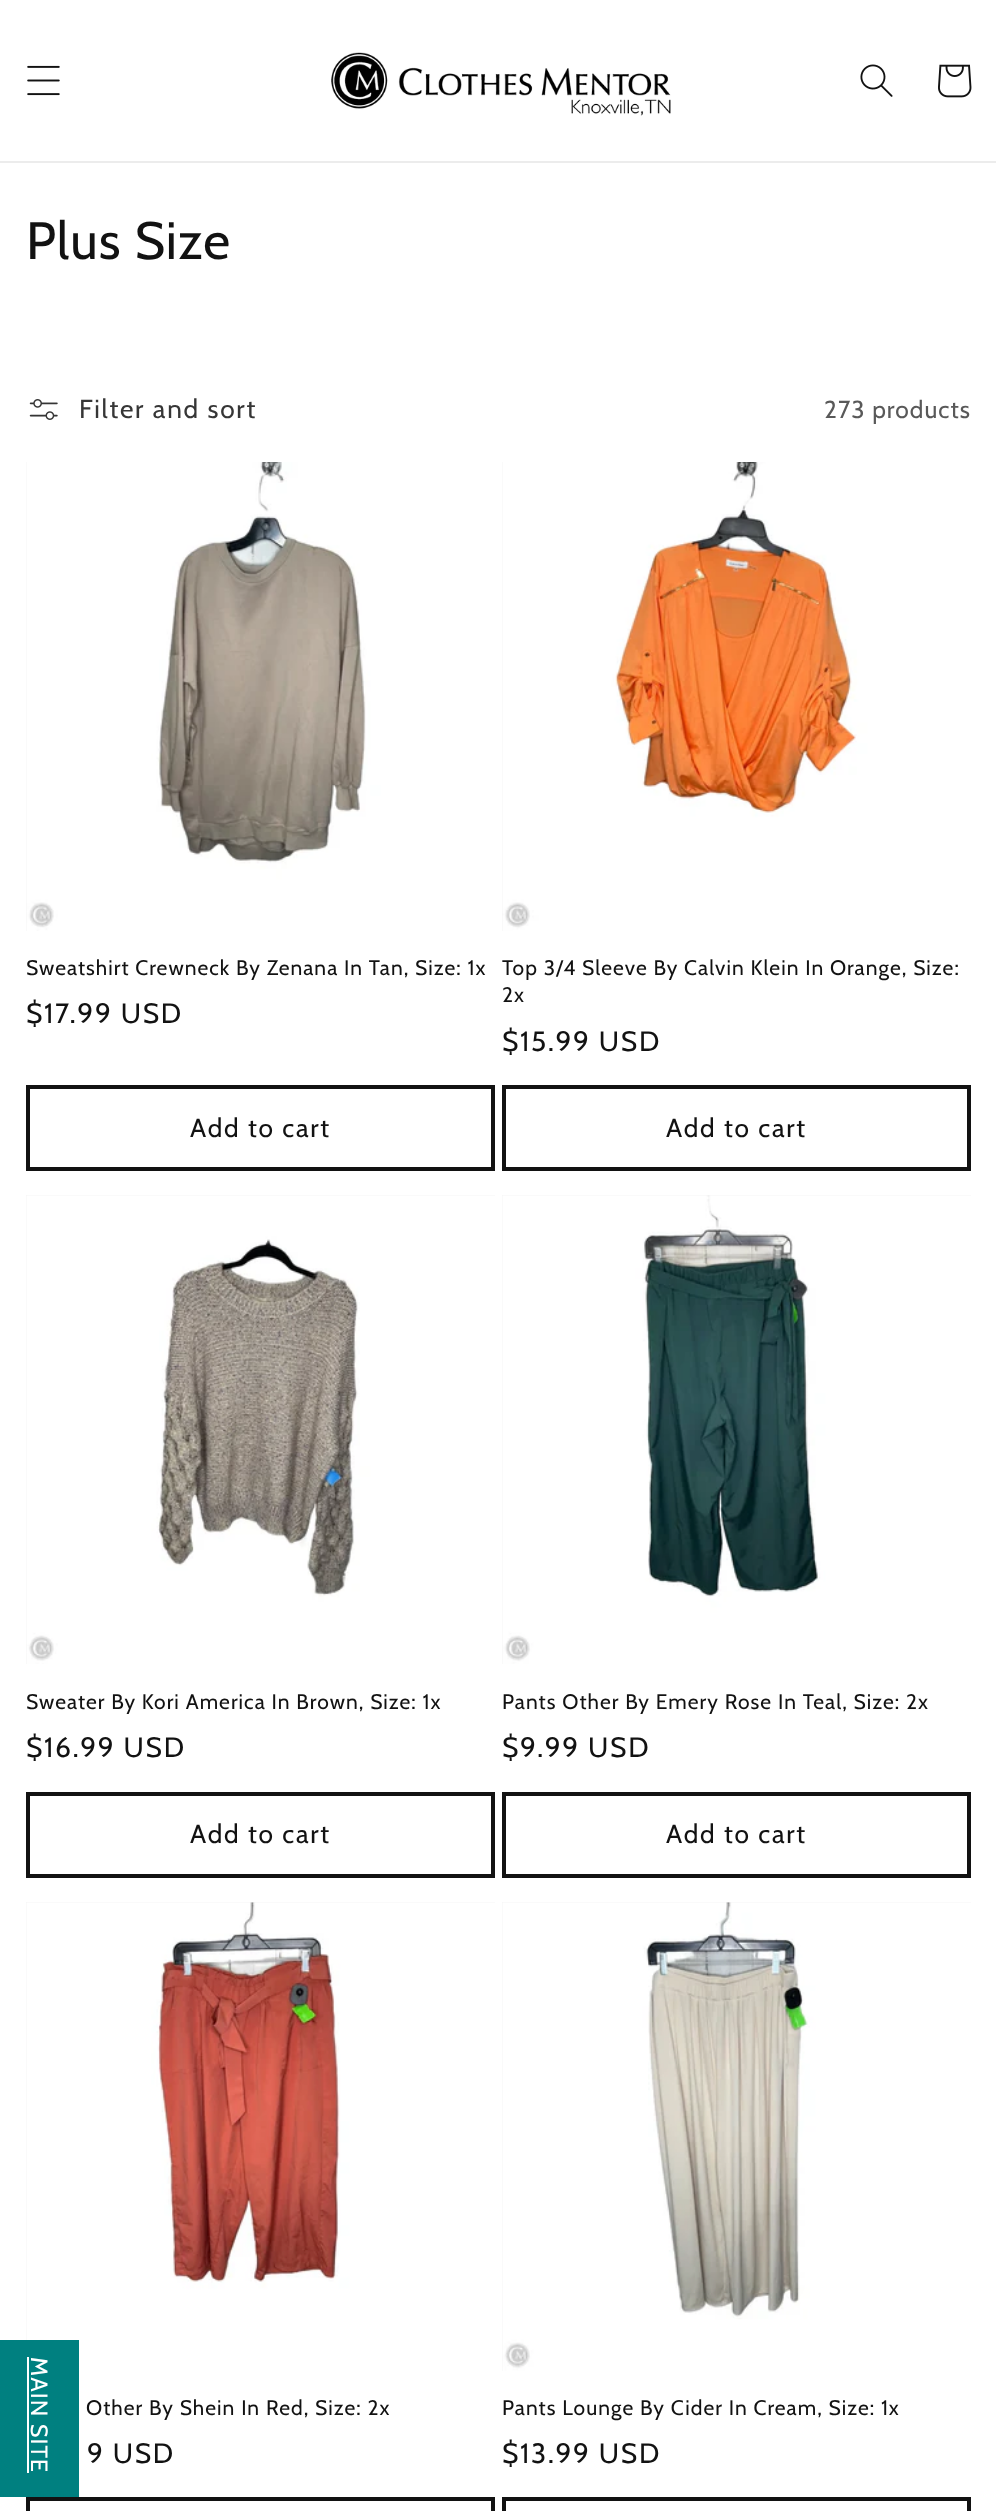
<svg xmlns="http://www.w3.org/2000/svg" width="996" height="2511">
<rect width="100%" height="100%" fill="#fff"/>
<rect y="161" width="996" height="2" fill="#ececec"/>
<image x="27" y="65" width="33" height="31" href="media/1.png"/>
<image x="331" y="52" width="340" height="64" href="media/2.png"/>
<image x="860" y="64" width="33" height="33" href="media/3.png"/>
<image x="938" y="64" width="34" height="34" href="media/4.png"/>
<text x="26" y="259" style="font-family:Cabin;font-size:52.5px;letter-spacing:1.05px;fill:#121212">Plus Size</text>
<image x="29" y="399" width="29" height="21" href="media/5.png"/>
<text x="79" y="418" style="font-family:Cabin;font-size:26.25px;letter-spacing:1.75px;fill:#363636">Filter and sort</text>
<text x="824" y="418" style="font-family:Cabin;font-size:24.5px;letter-spacing:1.05px;fill:#595959">273 products</text>
<rect x="26" y="462" width="1" height="469" fill="#f3f3f3"/>
<image x="26" y="462" width="469" height="469" href="media/6.png"/>
<text x="26" y="975" style="font-family:Cabin;font-size:21px;letter-spacing:1.05px;fill:#121212">Sweatshirt Crewneck By Zenana In Tan, Size: 1x</text>
<text x="26" y="1023" style="font-family:Cabin;font-size:28px;letter-spacing:1.75px;fill:#121212">$17.99 USD</text>
<rect x="28" y="1087" width="465" height="82" fill="none" stroke="#121212" stroke-width="4"/>
<text x="190" y="1137" style="font-family:Cabin;font-size:26.25px;letter-spacing:1.75px;fill:#121212">Add to cart</text>
<rect x="502" y="462" width="1" height="469" fill="#f3f3f3"/>
<image x="502" y="462" width="469" height="469" href="media/7.png"/>
<text x="502" y="975" style="font-family:Cabin;font-size:21px;letter-spacing:1.05px;fill:#121212">Top 3/4 Sleeve By Calvin Klein In Orange, Size:</text>
<text x="502" y="1002" style="font-family:Cabin;font-size:21px;letter-spacing:1.05px;fill:#121212">2x</text>
<text x="502" y="1051" style="font-family:Cabin;font-size:28px;letter-spacing:1.75px;fill:#121212">$15.99 USD</text>
<rect x="504" y="1087" width="465" height="82" fill="none" stroke="#121212" stroke-width="4"/>
<text x="666" y="1137" style="font-family:Cabin;font-size:26.25px;letter-spacing:1.75px;fill:#121212">Add to cart</text>
<rect x="26" y="1195" width="469" height="469" fill="#f3f3f3"/>
<image x="26" y="1195" width="469" height="469" href="media/8.png"/>
<text x="26" y="1709" style="font-family:Cabin;font-size:21px;letter-spacing:1.05px;fill:#121212">Sweater By Kori America In Brown, Size: 1x</text>
<text x="26" y="1757" style="font-family:Cabin;font-size:28px;letter-spacing:1.75px;fill:#121212">$16.99 USD</text>
<rect x="28" y="1794" width="465" height="82" fill="none" stroke="#121212" stroke-width="4"/>
<text x="190" y="1843" style="font-family:Cabin;font-size:26.25px;letter-spacing:1.75px;fill:#121212">Add to cart</text>
<rect x="502" y="1195" width="469" height="469" fill="#f3f3f3"/>
<image x="502" y="1195" width="469" height="469" href="media/9.png"/>
<text x="502" y="1709" style="font-family:Cabin;font-size:21px;letter-spacing:1.05px;fill:#121212">Pants Other By Emery Rose In Teal, Size: 2x</text>
<text x="502" y="1757" style="font-family:Cabin;font-size:28px;letter-spacing:1.75px;fill:#121212">$9.99 USD</text>
<rect x="504" y="1794" width="465" height="82" fill="none" stroke="#121212" stroke-width="4"/>
<text x="666" y="1843" style="font-family:Cabin;font-size:26.25px;letter-spacing:1.75px;fill:#121212">Add to cart</text>
<rect x="26" y="1902" width="469" height="438" fill="#f3f3f3"/>
<image x="26" y="1902" width="469" height="469" href="media/10.png"/>
<text x="86" y="2415" style="font-family:Cabin;font-size:21px;letter-spacing:1.05px;fill:#121212">Other By Shein In Red, Size: 2x</text>
<text x="87" y="2463" style="font-family:Cabin;font-size:28px;letter-spacing:1.75px;fill:#121212">9 USD</text>
<rect x="28" y="2499" width="465" height="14" fill="none" stroke="#121212" stroke-width="4"/>
<rect x="502" y="1902" width="469" height="469" fill="#f3f3f3"/>
<image x="502" y="1902" width="469" height="469" href="media/11.png"/>
<text x="502" y="2415" style="font-family:Cabin;font-size:21px;letter-spacing:1.05px;fill:#121212">Pants Lounge By Cider In Cream, Size: 1x</text>
<text x="502" y="2463" style="font-family:Cabin;font-size:28px;letter-spacing:1.75px;fill:#121212">$13.99 USD</text>
<rect x="504" y="2499" width="465" height="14" fill="none" stroke="#121212" stroke-width="4"/>
<rect y="2340" width="79" height="157" fill="#008080"/>
<text x="31" y="2357" transform="rotate(90 31 2357)" style="font-family:Cabin;font-size:23.5px;letter-spacing:1.05px;fill:#fff">MAIN SITE</text>
<rect x="27" y="2357" width="2" height="116" fill="#fff"/>
</svg>
